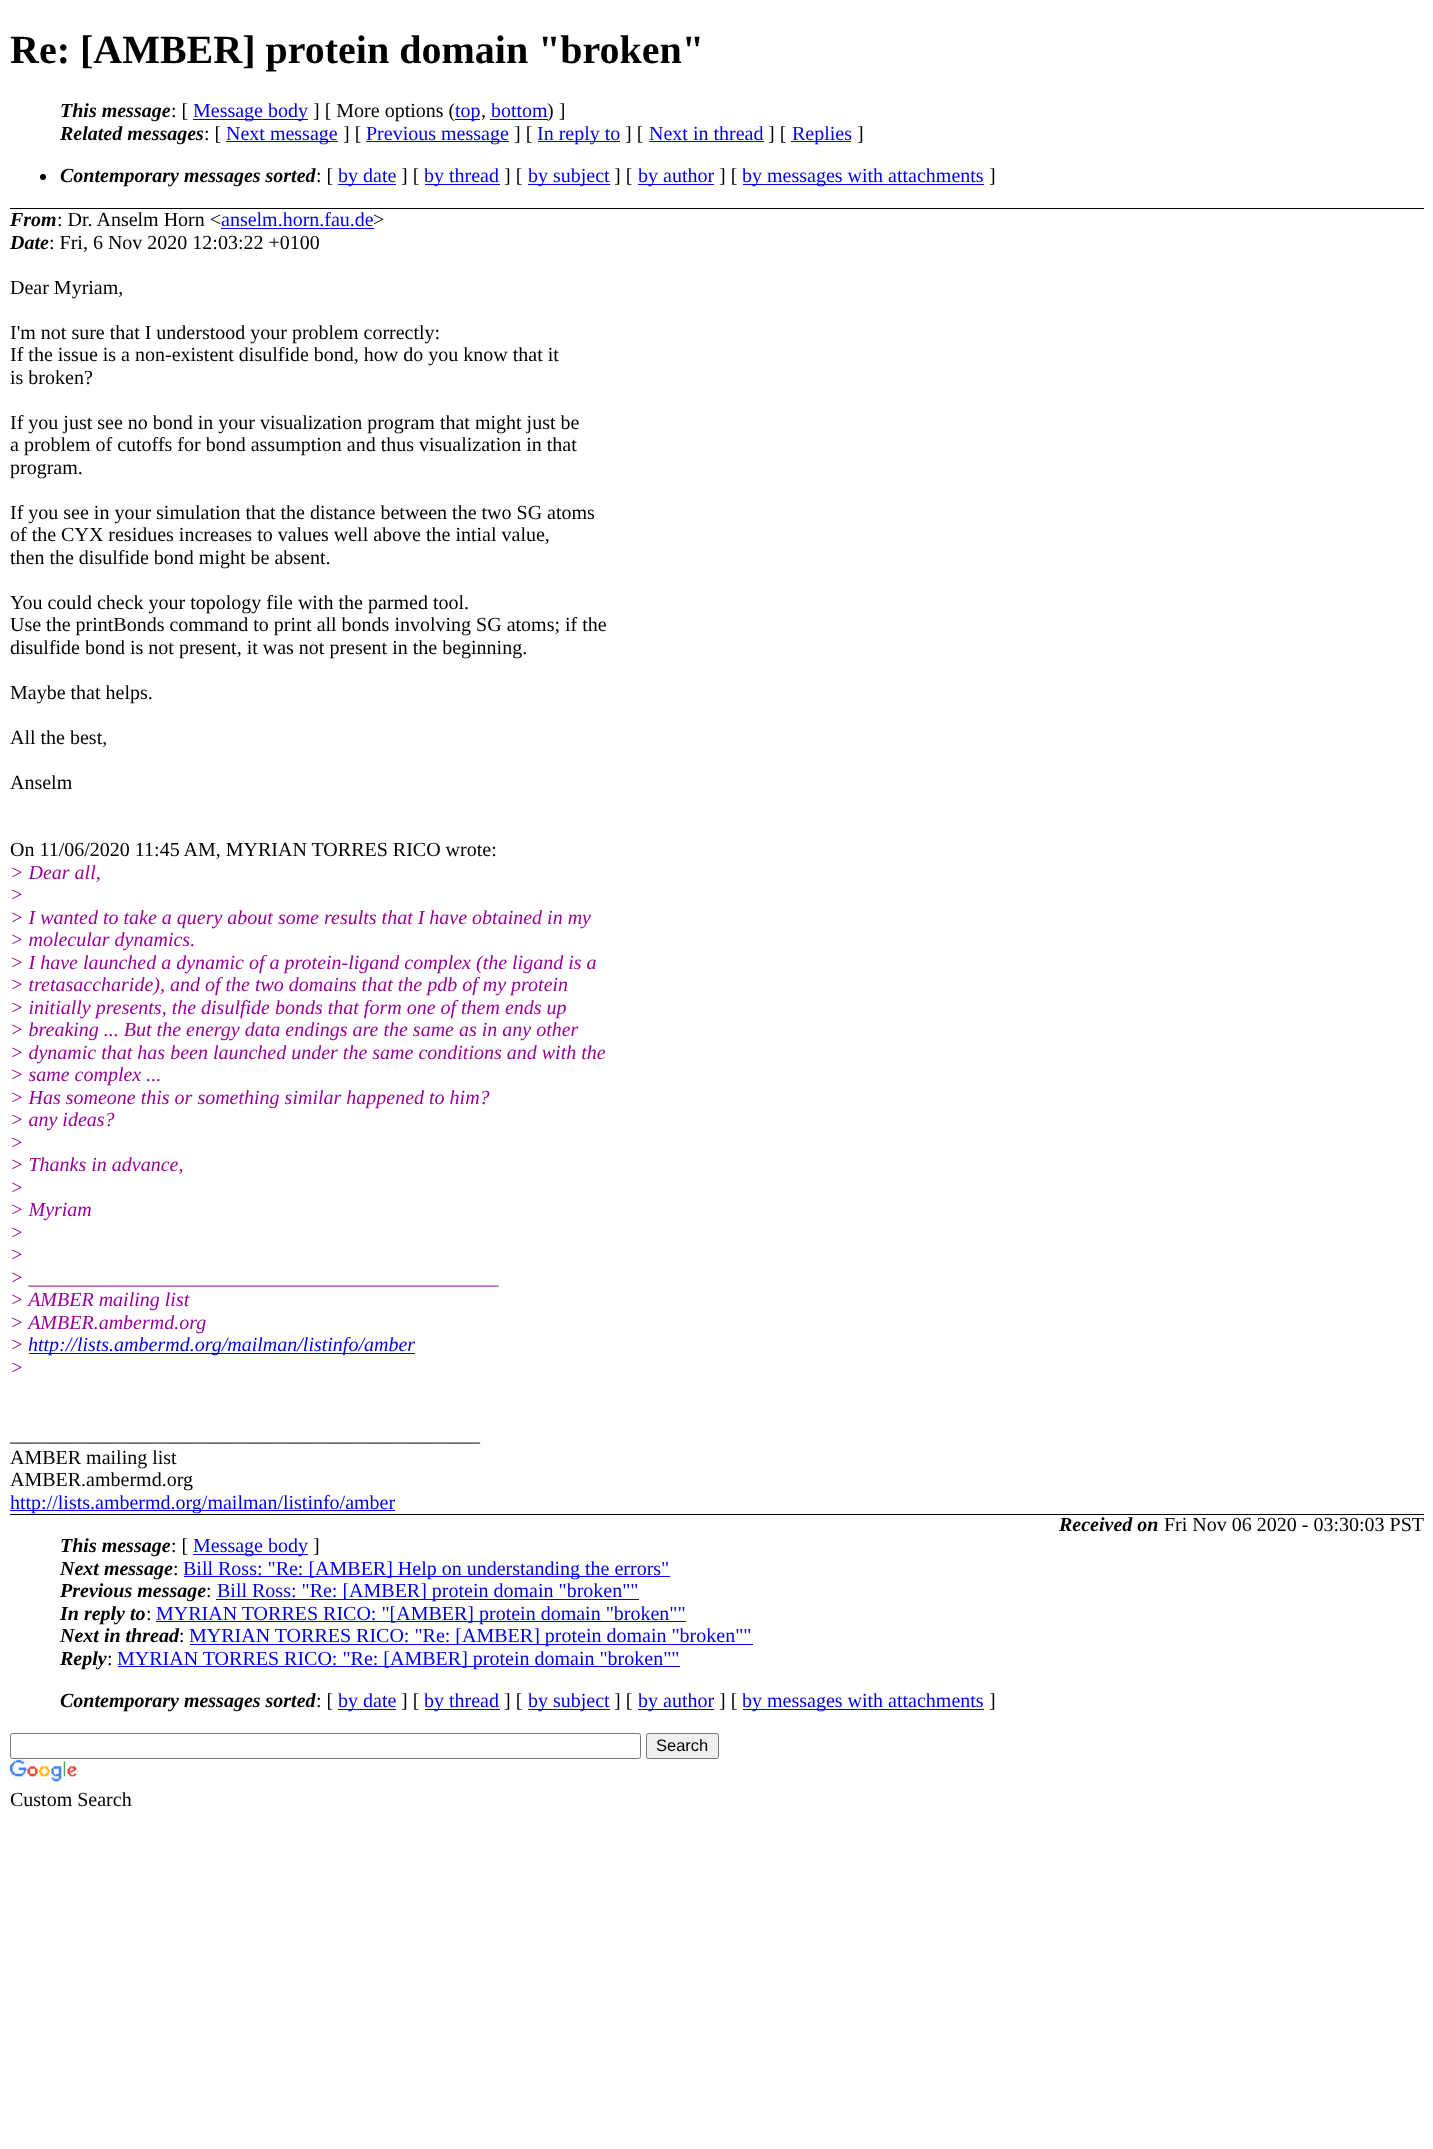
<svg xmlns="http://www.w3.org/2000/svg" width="1433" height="2149">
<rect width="100%" height="100%" fill="#fff"/>
<rect x="10" y="208" width="1414" height="1" fill="#000"/>
<text x="10" y="63" style="font-family:Liberation Serif;font-size:40px;font-weight:bold;fill:#000">Re: [AMBER] protein domain "broken"</text>
<text x="60" y="117" style="font-family:Liberation Serif;font-size:20px;font-weight:bold;font-style:italic;fill:#000">This message</text>
<text x="171" y="117" style="font-family:Liberation Serif;font-size:20px;fill:#000">: [</text>
<rect x="193" y="119" width="115" height="1" fill="#00e"/>
<text x="193" y="117" style="font-family:Liberation Serif;font-size:20px;fill:#00e">Message body</text>
<text x="313" y="117" style="font-family:Liberation Serif;font-size:20px;fill:#000">] [ More options (</text>
<rect x="455" y="119" width="25" height="1" fill="#00e"/>
<text x="455" y="117" style="font-family:Liberation Serif;font-size:20px;fill:#00e">top</text>
<text x="481" y="117" style="font-family:Liberation Serif;font-size:20px;fill:#000">,</text>
<text x="491" y="117" style="font-family:Liberation Serif;font-size:20px;fill:#00e">bottom</text>
<rect x="490" y="119" width="58" height="1" fill="#00e"/>
<text x="547" y="117" style="font-family:Liberation Serif;font-size:20px;fill:#000">) ]</text>
<text x="60" y="140" style="font-family:Liberation Serif;font-size:20px;font-weight:bold;font-style:italic;fill:#000">Related messages</text>
<text x="204" y="140" style="font-family:Liberation Serif;font-size:20px;fill:#000">: [</text>
<rect x="226" y="141" width="112" height="1" fill="#00e"/>
<text x="226" y="140" style="font-family:Liberation Serif;font-size:20px;fill:#00e">Next message</text>
<text x="343" y="140" style="font-family:Liberation Serif;font-size:20px;fill:#000">] [</text>
<rect x="366" y="141" width="143" height="1" fill="#00e"/>
<text x="366" y="140" style="font-family:Liberation Serif;font-size:20px;fill:#00e">Previous message</text>
<text x="514" y="140" style="font-family:Liberation Serif;font-size:20px;fill:#000">] [</text>
<rect x="538" y="141" width="82" height="1" fill="#00e"/>
<text x="537" y="140" style="font-family:Liberation Serif;font-size:20px;fill:#00e">In reply to</text>
<text x="625" y="140" style="font-family:Liberation Serif;font-size:20px;fill:#000">] [</text>
<text x="649" y="140" style="font-family:Liberation Serif;font-size:20px;fill:#00e">Next in thread</text>
<rect x="649" y="141" width="115" height="1" fill="#00e"/>
<text x="768" y="140" style="font-family:Liberation Serif;font-size:20px;fill:#000">] [</text>
<rect x="791" y="141" width="60" height="1" fill="#00e"/>
<text x="792" y="140" style="font-family:Liberation Serif;font-size:20px;fill:#00e">Replies</text>
<text x="857" y="140" style="font-family:Liberation Serif;font-size:20px;fill:#000">]</text>
<circle cx="43" cy="177" r="3" fill="#000"/>
<text x="60" y="182" style="font-family:Liberation Serif;font-size:20px;font-weight:bold;font-style:italic;fill:#000">Contemporary messages sorted</text>
<text x="316" y="182" style="font-family:Liberation Serif;font-size:20px;fill:#000">: [</text>
<rect x="338" y="184" width="58" height="1" fill="#00e"/>
<text x="338" y="182" style="font-family:Liberation Serif;font-size:20px;fill:#00e">by date</text>
<text x="401" y="182" style="font-family:Liberation Serif;font-size:20px;fill:#000">] [</text>
<rect x="425" y="184" width="75" height="1" fill="#00e"/>
<text x="424" y="182" style="font-family:Liberation Serif;font-size:20px;fill:#00e">by thread</text>
<text x="504" y="182" style="font-family:Liberation Serif;font-size:20px;fill:#000">] [</text>
<rect x="528" y="184" width="82" height="1" fill="#00e"/>
<text x="528" y="182" style="font-family:Liberation Serif;font-size:20px;fill:#00e">by subject</text>
<text x="614" y="182" style="font-family:Liberation Serif;font-size:20px;fill:#000">] [</text>
<rect x="638" y="184" width="76" height="1" fill="#00e"/>
<text x="638" y="182" style="font-family:Liberation Serif;font-size:20px;fill:#00e">by author</text>
<text x="719" y="182" style="font-family:Liberation Serif;font-size:20px;fill:#000">] [</text>
<rect x="743" y="184" width="241" height="1" fill="#00e"/>
<text x="742" y="182" style="font-family:Liberation Serif;font-size:20px;fill:#00e">by messages with attachments</text>
<text x="989" y="182" style="font-family:Liberation Serif;font-size:20px;fill:#000">]</text>
<text x="10" y="226" style="font-family:Liberation Serif;font-size:20px;font-weight:bold;font-style:italic;fill:#000">From</text>
<text x="57" y="226" style="font-family:Liberation Serif;font-size:20px;fill:#000">: Dr. Anselm Horn &lt;</text>
<text x="221" y="226" style="font-family:Liberation Serif;font-size:20px;fill:#00e">anselm.horn.fau.de</text>
<text x="373" y="226" style="font-family:Liberation Serif;font-size:20px;fill:#000">&gt;</text>
<rect x="221" y="228" width="153" height="1" fill="#00e"/>
<text x="10" y="249" style="font-family:Liberation Serif;font-size:20px;font-weight:bold;font-style:italic;fill:#000">Date</text>
<text x="49" y="249" style="font-family:Liberation Serif;font-size:20px;fill:#000">: Fri, 6 Nov 2020 12:03:22 +0100</text>
<text x="10" y="294" style="font-family:Liberation Serif;font-size:20px;fill:#000">Dear Myriam,</text>
<text x="10" y="339" style="font-family:Liberation Serif;font-size:20px;fill:#000">I'm not sure that I understood your problem correctly:</text>
<text x="10" y="361" style="font-family:Liberation Serif;font-size:20px;fill:#000">If the issue is a non-existent disulfide bond, how do you know that it</text>
<text x="10" y="384" style="font-family:Liberation Serif;font-size:20px;fill:#000">is broken?</text>
<text x="10" y="429" style="font-family:Liberation Serif;font-size:20px;fill:#000">If you just see no bond in your visualization program that might just be</text>
<text x="10" y="451" style="font-family:Liberation Serif;font-size:20px;fill:#000">a problem of cutoffs for bond assumption and thus visualization in that</text>
<text x="10" y="474" style="font-family:Liberation Serif;font-size:20px;fill:#000">program.</text>
<text x="10" y="519" style="font-family:Liberation Serif;font-size:20px;fill:#000">If you see in your simulation that the distance between the two SG atoms</text>
<text x="10" y="541" style="font-family:Liberation Serif;font-size:20px;fill:#000">of the CYX residues increases to values well above the intial value,</text>
<text x="10" y="564" style="font-family:Liberation Serif;font-size:20px;fill:#000">then the disulfide bond might be absent.</text>
<text x="10" y="609" style="font-family:Liberation Serif;font-size:20px;fill:#000">You could check your topology file with the parmed tool.</text>
<text x="10" y="631" style="font-family:Liberation Serif;font-size:20px;fill:#000">Use the printBonds command to print all bonds involving SG atoms; if the</text>
<text x="10" y="654" style="font-family:Liberation Serif;font-size:20px;fill:#000">disulfide bond is not present, it was not present in the beginning.</text>
<text x="10" y="699" style="font-family:Liberation Serif;font-size:20px;fill:#000">Maybe that helps.</text>
<text x="10" y="744" style="font-family:Liberation Serif;font-size:20px;fill:#000">All the best,</text>
<text x="10" y="789" style="font-family:Liberation Serif;font-size:20px;fill:#000">Anselm</text>
<text x="10" y="856" style="font-family:Liberation Serif;font-size:20px;fill:#000">On 11/06/2020 11:45 AM, MYRIAN TORRES RICO wrote:</text>
<text x="10" y="879" style="font-family:Liberation Serif;font-size:20px;font-style:italic;fill:#909">&gt; Dear all,</text>
<text x="10" y="901" style="font-family:Liberation Serif;font-size:20px;font-style:italic;fill:#909">&gt;</text>
<text x="10" y="924" style="font-family:Liberation Serif;font-size:20px;font-style:italic;fill:#909">&gt; I wanted to take a query about some results that I have obtained in my</text>
<text x="10" y="946" style="font-family:Liberation Serif;font-size:20px;font-style:italic;fill:#909">&gt; molecular dynamics.</text>
<text x="10" y="969" style="font-family:Liberation Serif;font-size:20px;font-style:italic;fill:#909">&gt; I have launched a dynamic of a protein-ligand complex (the ligand is a</text>
<text x="10" y="991" style="font-family:Liberation Serif;font-size:20px;font-style:italic;fill:#909">&gt; tretasaccharide), and of the two domains that the pdb of my protein</text>
<text x="10" y="1014" style="font-family:Liberation Serif;font-size:20px;font-style:italic;fill:#909">&gt; initially presents, the disulfide bonds that form one of them ends up</text>
<text x="10" y="1036" style="font-family:Liberation Serif;font-size:20px;font-style:italic;fill:#909">&gt; breaking ... But the energy data endings are the same as in any other</text>
<text x="10" y="1059" style="font-family:Liberation Serif;font-size:20px;font-style:italic;fill:#909">&gt; dynamic that has been launched under the same conditions and with the</text>
<text x="10" y="1081" style="font-family:Liberation Serif;font-size:20px;font-style:italic;fill:#909">&gt; same complex ...</text>
<text x="10" y="1104" style="font-family:Liberation Serif;font-size:20px;font-style:italic;fill:#909">&gt; Has someone this or something similar happened to him?</text>
<text x="10" y="1126" style="font-family:Liberation Serif;font-size:20px;font-style:italic;fill:#909">&gt; any ideas?</text>
<text x="10" y="1149" style="font-family:Liberation Serif;font-size:20px;font-style:italic;fill:#909">&gt;</text>
<text x="10" y="1171" style="font-family:Liberation Serif;font-size:20px;font-style:italic;fill:#909">&gt; Thanks in advance,</text>
<text x="10" y="1194" style="font-family:Liberation Serif;font-size:20px;font-style:italic;fill:#909">&gt;</text>
<text x="10" y="1216" style="font-family:Liberation Serif;font-size:20px;font-style:italic;fill:#909">&gt; Myriam</text>
<text x="10" y="1239" style="font-family:Liberation Serif;font-size:20px;font-style:italic;fill:#909">&gt;</text>
<text x="10" y="1261" style="font-family:Liberation Serif;font-size:20px;font-style:italic;fill:#909">&gt;</text>
<text x="10" y="1284" style="font-family:Liberation Serif;font-size:20px;font-style:italic;fill:#909">&gt; _______________________________________________</text>
<text x="10" y="1306" style="font-family:Liberation Serif;font-size:20px;font-style:italic;fill:#909">&gt; AMBER mailing list</text>
<text x="10" y="1329" style="font-family:Liberation Serif;font-size:20px;font-style:italic;fill:#909">&gt; AMBER.ambermd.org</text>
<text x="10" y="1351" style="font-family:Liberation Serif;font-size:20px;font-style:italic;fill:#909">&gt;</text>
<rect x="29" y="1353" width="386" height="1" fill="#00e"/>
<text x="28" y="1351" style="font-family:Liberation Serif;font-size:20px;font-style:italic;fill:#00e">http://lists.ambermd.org/mailman/listinfo/amber</text>
<text x="10" y="1374" style="font-family:Liberation Serif;font-size:20px;font-style:italic;fill:#909">&gt;</text>
<text x="10" y="1441" style="font-family:Liberation Serif;font-size:20px;fill:#000">_______________________________________________</text>
<text x="10" y="1464" style="font-family:Liberation Serif;font-size:20px;fill:#000">AMBER mailing list</text>
<text x="10" y="1486" style="font-family:Liberation Serif;font-size:20px;fill:#000">AMBER.ambermd.org</text>
<rect x="10" y="1510" width="385" height="1" fill="#00e"/>
<text x="10" y="1509" style="font-family:Liberation Serif;font-size:20px;fill:#00e">http://lists.ambermd.org/mailman/listinfo/amber</text>
<text x="1059" y="1531" style="font-family:Liberation Serif;font-size:20px;font-weight:bold;font-style:italic;fill:#000">Received on</text>
<text x="1164" y="1531" style="font-family:Liberation Serif;font-size:20px;fill:#000">Fri Nov 06 2020 - 03:30:03 PST</text>
<rect x="10" y="1514" width="1414" height="1" fill="#000"/>
<text x="60" y="1552" style="font-family:Liberation Serif;font-size:20px;font-weight:bold;font-style:italic;fill:#000">This message</text>
<text x="171" y="1552" style="font-family:Liberation Serif;font-size:20px;fill:#000">: [</text>
<rect x="193" y="1554" width="115" height="1" fill="#00e"/>
<text x="193" y="1552" style="font-family:Liberation Serif;font-size:20px;fill:#00e">Message body</text>
<text x="313" y="1552" style="font-family:Liberation Serif;font-size:20px;fill:#000">]</text>
<text x="60" y="1575" style="font-family:Liberation Serif;font-size:20px;font-weight:bold;font-style:italic;fill:#000">Next message</text>
<text x="173" y="1575" style="font-family:Liberation Serif;font-size:20px;fill:#000">:</text>
<rect x="184" y="1576" width="486" height="1" fill="#00e"/>
<text x="183" y="1575" style="font-family:Liberation Serif;font-size:20px;fill:#00e">Bill Ross: "Re: [AMBER] Help on understanding the errors"</text>
<text x="60" y="1597" style="font-family:Liberation Serif;font-size:20px;font-weight:bold;font-style:italic;fill:#000">Previous message</text>
<text x="206" y="1597" style="font-family:Liberation Serif;font-size:20px;fill:#000">:</text>
<rect x="216" y="1599" width="423" height="1" fill="#00e"/>
<text x="217" y="1597" style="font-family:Liberation Serif;font-size:20px;fill:#00e">Bill Ross: "Re: [AMBER] protein domain "broken""</text>
<text x="60" y="1620" style="font-family:Liberation Serif;font-size:20px;font-weight:bold;font-style:italic;fill:#000">In reply to</text>
<text x="146" y="1620" style="font-family:Liberation Serif;font-size:20px;fill:#000">:</text>
<rect x="156" y="1621" width="530" height="1" fill="#00e"/>
<text x="156" y="1620" style="font-family:Liberation Serif;font-size:20px;fill:#00e">MYRIAN TORRES RICO: "[AMBER] protein domain "broken""</text>
<text x="60" y="1642" style="font-family:Liberation Serif;font-size:20px;font-weight:bold;font-style:italic;fill:#000">Next in thread</text>
<text x="179" y="1642" style="font-family:Liberation Serif;font-size:20px;fill:#000">:</text>
<rect x="190" y="1644" width="563" height="1" fill="#00e"/>
<text x="189" y="1642" style="font-family:Liberation Serif;font-size:20px;fill:#00e">MYRIAN TORRES RICO: "Re: [AMBER] protein domain "broken""</text>
<text x="60" y="1665" style="font-family:Liberation Serif;font-size:20px;font-weight:bold;font-style:italic;fill:#000">Reply</text>
<text x="107" y="1665" style="font-family:Liberation Serif;font-size:20px;fill:#000">:</text>
<rect x="118" y="1666" width="562" height="1" fill="#00e"/>
<text x="117" y="1665" style="font-family:Liberation Serif;font-size:20px;fill:#00e">MYRIAN TORRES RICO: "Re: [AMBER] protein domain "broken""</text>
<text x="60" y="1707" style="font-family:Liberation Serif;font-size:20px;font-weight:bold;font-style:italic;fill:#000">Contemporary messages sorted</text>
<text x="316" y="1707" style="font-family:Liberation Serif;font-size:20px;fill:#000">: [</text>
<rect x="338" y="1709" width="58" height="1" fill="#00e"/>
<text x="338" y="1707" style="font-family:Liberation Serif;font-size:20px;fill:#00e">by date</text>
<text x="401" y="1707" style="font-family:Liberation Serif;font-size:20px;fill:#000">] [</text>
<rect x="425" y="1709" width="75" height="1" fill="#00e"/>
<text x="424" y="1707" style="font-family:Liberation Serif;font-size:20px;fill:#00e">by thread</text>
<text x="504" y="1707" style="font-family:Liberation Serif;font-size:20px;fill:#000">] [</text>
<rect x="528" y="1709" width="82" height="1" fill="#00e"/>
<text x="528" y="1707" style="font-family:Liberation Serif;font-size:20px;fill:#00e">by subject</text>
<text x="614" y="1707" style="font-family:Liberation Serif;font-size:20px;fill:#000">] [</text>
<rect x="638" y="1709" width="76" height="1" fill="#00e"/>
<text x="638" y="1707" style="font-family:Liberation Serif;font-size:20px;fill:#00e">by author</text>
<text x="719" y="1707" style="font-family:Liberation Serif;font-size:20px;fill:#000">] [</text>
<rect x="743" y="1709" width="241" height="1" fill="#00e"/>
<text x="742" y="1707" style="font-family:Liberation Serif;font-size:20px;fill:#00e">by messages with attachments</text>
<text x="989" y="1707" style="font-family:Liberation Serif;font-size:20px;fill:#000">]</text>
<rect x="10.5" y="1733.5" width="630" height="25" rx="2" fill="none" stroke="#767676"/>
<rect x="646.5" y="1733.5" width="72" height="25" rx="2" fill="#efefef" stroke="#767676"/>
<text x="656" y="1751" style="font-family:Liberation Sans;font-size:16.5px;fill:#000">Search</text>
<image x="10" y="1759" width="67" height="23" href="media/1.png"/>
<text x="10" y="1806" style="font-family:Liberation Serif;font-size:20px;fill:#000">Custom Search</text>
</svg>
